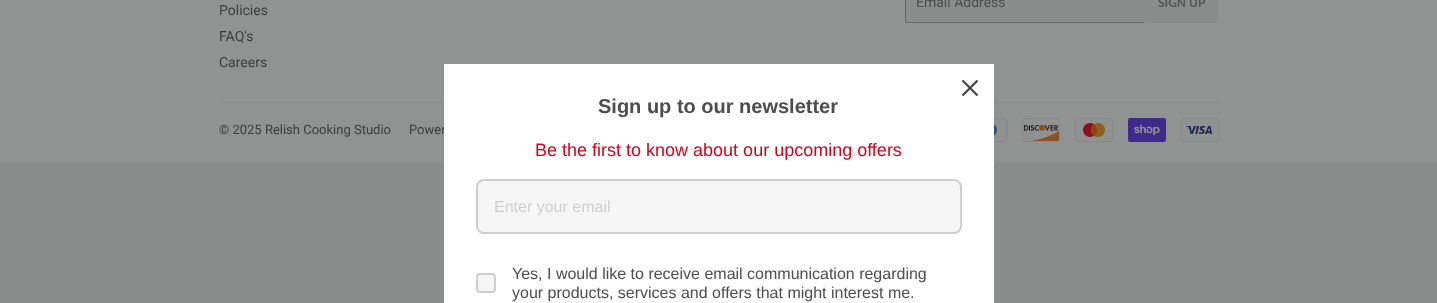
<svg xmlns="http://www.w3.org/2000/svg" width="1437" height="303">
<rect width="100%" height="100%" fill="#8b8c8c"/>
<rect width="1437" height="162" fill="#919292"/>
<text x="219" y="15" style="font-family:Roboto;font-size:14px;fill:#3b3c3c">Policies</text>
<text x="219" y="41" style="font-family:Roboto;font-size:14px;fill:#3b3c3c">FAQ's</text>
<text x="219" y="67" style="font-family:Roboto;font-size:14px;fill:#3b3c3c">Careers</text>
<rect x="905" y="-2" width="240" height="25" rx="2" fill="#8b8c8c"/>
<rect x="906" y="22" width="238" height="1" fill="#676868"/>
<rect x="905" width="1" height="22" fill="#676868"/>
<text x="916" y="7" style="font-family:Roboto;font-size:14px;fill:#4c4d4d">Email Address</text>
<path d="M1145-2h71c1 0 2 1 2 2v21c0 1-1 2-2 2h-71z" fill="#8b8c8c"/>
<text x="1158" y="7" style="font-family:Lato;font-size:12px;font-weight:bold;fill:#545555">SIGN UP</text>
<rect x="219" y="102" width="1000" height="1" fill="#8a8b8b"/>
<text x="219" y="134" style="font-family:Roboto;font-size:13px;fill:#3b3c3c">© 2025 Relish Cooking Studio</text>
<text x="409" y="134" style="font-family:Roboto;font-size:13px;fill:#3b3c3c">Power</text>
<image x="994" y="118" width="13" height="24" href="media/1.png"/>
<image x="1022" y="118" width="38" height="24" href="media/2.png"/>
<image x="1075" y="118" width="38" height="24" href="media/3.png"/>
<image x="1128" y="118" width="38" height="24" href="media/4.png"/>
<image x="1181" y="118" width="38" height="24" href="media/5.png"/>
<rect x="444" y="64" width="550" height="239" fill="#fff"/>
<image x="962" y="80" width="16" height="16" href="media/6.png"/>
<text x="598" y="113" style="font-family:Liberation Sans;font-size:20px;font-weight:bold;fill:#4c4d4d">Sign up to our newsletter</text>
<text x="535" y="156" style="font-family:Liberation Sans;font-size:18px;fill:#d6001c">Be the first to know about our upcoming offers</text>
<rect x="477" y="180" width="484" height="53" rx="7" fill="#f6f6f6" stroke="#cfcfcf" stroke-width="2"/>
<text x="494" y="212" style="font-family:Liberation Sans;font-size:16px;fill:#cfcfcf">Enter your email</text>
<rect x="477" y="274" width="18" height="18" rx="3" fill="#f6f6f6" stroke="#cfcfcf" stroke-width="2"/>
<text x="512" y="279" style="font-family:Liberation Sans;font-size:16px;fill:#4c4d4d">Yes, I would like to receive email communication regarding</text>
<text x="512" y="298" style="font-family:Liberation Sans;font-size:16px;fill:#4c4d4d">your products, services and offers that might interest me.</text>
</svg>
